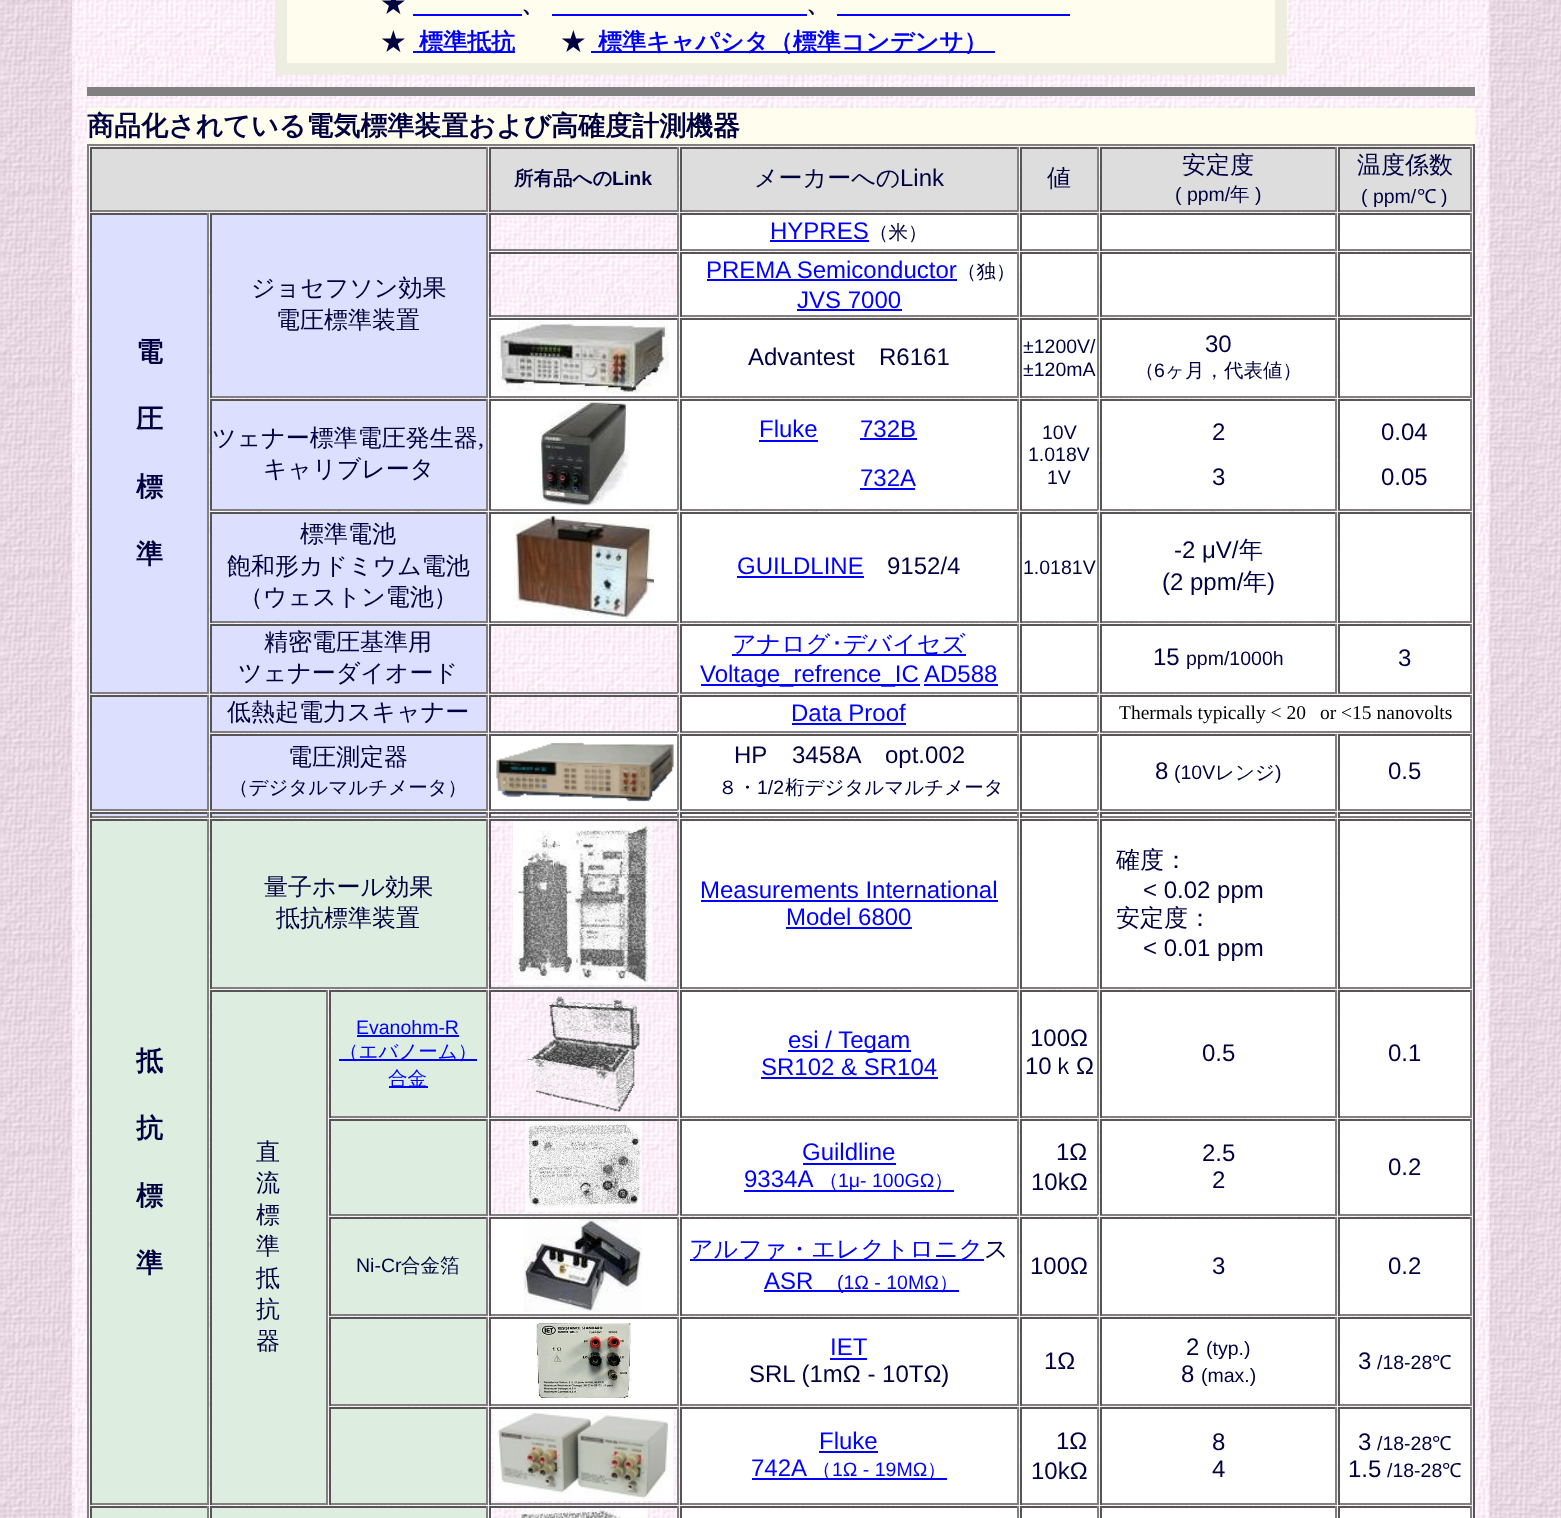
<svg xmlns="http://www.w3.org/2000/svg" width="1561" height="1518">
<rect width="100%" height="100%" fill="#fff"/>
<image x="0" y="0" width="1561" height="1518" href="media/1.png"/>
<image x="72" y="0" width="1418" height="1518" href="media/2.png"/>
<rect x="275" width="1012" height="75" fill="#eeeee0"/>
<rect x="287" width="988" height="63" fill="#fffeee"/>
<text x="381" y="12" style="font-family:WenQuanYi Zen Hei;font-size:24px;font-weight:bold;fill:#000040">★</text>
<text x="521" y="12" style="font-family:WenQuanYi Zen Hei;font-size:24px;font-weight:bold;fill:#000040">、</text>
<rect x="413" y="14" width="109" height="2" fill="#00f"/>
<text x="806" y="12" style="font-family:WenQuanYi Zen Hei;font-size:24px;font-weight:bold;fill:#000040">、</text>
<rect x="552" y="14" width="255" height="2" fill="#00f"/>
<rect x="837" y="14" width="233" height="2" fill="#00f"/>
<text x="381" y="50" style="font-family:WenQuanYi Zen Hei;font-size:24px;font-weight:bold;fill:#000040">★</text>
<rect x="413" y="51" width="102" height="2" fill="#00f"/>
<text x="419" y="50" style="font-family:WenQuanYi Zen Hei;font-size:24px;font-weight:bold;fill:#00f">標準抵抗</text>
<text x="561" y="50" style="font-family:WenQuanYi Zen Hei;font-size:24px;font-weight:bold;fill:#000040">★</text>
<rect x="591" y="51" width="404" height="2" fill="#00f"/>
<text x="598" y="50" style="font-family:WenQuanYi Zen Hei;font-size:24px;font-weight:bold;fill:#00f">標準キャパシタ（標準コンデンサ）</text>
<rect x="87" y="87" width="1388" height="9" fill="#808080"/>
<rect x="87" y="108" width="1388" height="36" fill="#fffeee"/>
<text x="87" y="135" style="font-family:WenQuanYi Zen Hei;font-size:27px;font-weight:bold;fill:#000040">商品化されている電気標準装置および高確度計測機器</text>
<rect x="87" y="144" width="1388" height="2" fill="#808080"/>
<rect x="1473" y="144" width="2" height="1374" fill="#555"/>
<rect x="87" y="144" width="2" height="1374" fill="#808080"/>
<rect x="92" y="149" width="394" height="61" fill="#ddd"/>
<rect x="90" y="147" width="398" height="2" fill="#555"/>
<rect x="486" y="147" width="2" height="65" fill="#808080"/>
<rect x="90" y="210" width="398" height="2" fill="#808080"/>
<rect x="90" y="147" width="2" height="65" fill="#555"/>
<rect x="491" y="149" width="186" height="61" fill="#ddd"/>
<rect x="489" y="147" width="189" height="2" fill="#555"/>
<rect x="677" y="147" width="2" height="65" fill="#808080"/>
<rect x="489" y="210" width="189" height="2" fill="#808080"/>
<rect x="489" y="147" width="2" height="65" fill="#555"/>
<text x="514" y="185" style="font-family:WenQuanYi Zen Hei;font-size:19.5px;font-weight:bold;fill:#000040">所有品への</text>
<text x="612" y="185" style="font-family:Liberation Sans;font-size:19.5px;font-weight:bold;fill:#000040">Link</text>
<rect x="682" y="149" width="335" height="61" fill="#ddd"/>
<rect x="680" y="147" width="339" height="2" fill="#555"/>
<rect x="1017" y="147" width="2" height="65" fill="#808080"/>
<rect x="680" y="210" width="339" height="2" fill="#808080"/>
<rect x="680" y="147" width="2" height="65" fill="#555"/>
<text x="754" y="186" style="font-family:WenQuanYi Zen Hei;font-size:24px;font-weight:500;fill:#000040">メーカーへの</text>
<text x="900" y="186" style="font-family:Liberation Sans;font-size:24px;fill:#000040">Link</text>
<rect x="1022" y="149" width="75" height="61" fill="#ddd"/>
<rect x="1020" y="147" width="78" height="2" fill="#555"/>
<rect x="1097" y="147" width="2" height="65" fill="#808080"/>
<rect x="1020" y="210" width="78" height="2" fill="#808080"/>
<rect x="1020" y="147" width="2" height="65" fill="#555"/>
<text x="1047" y="186" style="font-family:WenQuanYi Zen Hei;font-size:24px;font-weight:500;fill:#000040">値</text>
<rect x="1102" y="149" width="233" height="61" fill="#ddd"/>
<rect x="1100" y="147" width="237" height="2" fill="#555"/>
<rect x="1335" y="147" width="2" height="65" fill="#808080"/>
<rect x="1100" y="210" width="237" height="2" fill="#808080"/>
<rect x="1100" y="147" width="2" height="65" fill="#555"/>
<text x="1182" y="173" style="font-family:WenQuanYi Zen Hei;font-size:24px;font-weight:500;fill:#000040">安定度</text>
<text x="1175" y="201" style="font-family:Liberation Sans;font-size:19.5px;fill:#000040">( ppm/</text>
<text x="1230" y="201" style="font-family:WenQuanYi Zen Hei;font-size:19.5px;font-weight:500;fill:#000040">年</text>
<text x="1255" y="201" style="font-family:Liberation Sans;font-size:19.5px;fill:#000040">)</text>
<rect x="1340" y="149" width="130" height="61" fill="#ddd"/>
<rect x="1338" y="147" width="134" height="2" fill="#555"/>
<rect x="1470" y="147" width="2" height="65" fill="#808080"/>
<rect x="1338" y="210" width="134" height="2" fill="#808080"/>
<rect x="1338" y="147" width="2" height="65" fill="#555"/>
<text x="1357" y="173" style="font-family:WenQuanYi Zen Hei;font-size:24px;font-weight:500;fill:#000040">温度係数</text>
<text x="1361" y="203" style="font-family:Liberation Sans;font-size:19.5px;fill:#000040">( ppm/</text>
<text x="1417" y="203" style="font-family:Noto Sans;font-size:19.5px;fill:#000040">℃</text>
<text x="1441" y="203" style="font-family:Liberation Sans;font-size:19.5px;fill:#000040">)</text>
<rect x="489" y="213" width="189" height="2" fill="#555"/>
<rect x="677" y="213" width="2" height="38" fill="#808080"/>
<rect x="489" y="249" width="189" height="2" fill="#808080"/>
<rect x="489" y="213" width="2" height="38" fill="#555"/>
<rect x="682" y="215" width="335" height="34" fill="#fff"/>
<rect x="680" y="213" width="339" height="2" fill="#555"/>
<rect x="1017" y="213" width="2" height="38" fill="#808080"/>
<rect x="680" y="249" width="339" height="2" fill="#808080"/>
<rect x="680" y="213" width="2" height="38" fill="#555"/>
<text x="770" y="239" style="font-family:Liberation Sans;font-size:24px;fill:#00f">HYPRES</text>
<rect x="770" y="240" width="99" height="2" fill="#00f"/>
<text x="869" y="239" style="font-family:WenQuanYi Zen Hei;font-size:19.5px;font-weight:500;fill:#000040">（米）</text>
<rect x="1022" y="215" width="75" height="34" fill="#fff"/>
<rect x="1020" y="213" width="78" height="2" fill="#555"/>
<rect x="1097" y="213" width="2" height="38" fill="#808080"/>
<rect x="1020" y="249" width="78" height="2" fill="#808080"/>
<rect x="1020" y="213" width="2" height="38" fill="#555"/>
<rect x="1102" y="215" width="233" height="34" fill="#fff"/>
<rect x="1100" y="213" width="237" height="2" fill="#555"/>
<rect x="1335" y="213" width="2" height="38" fill="#808080"/>
<rect x="1100" y="249" width="237" height="2" fill="#808080"/>
<rect x="1100" y="213" width="2" height="38" fill="#555"/>
<rect x="1340" y="215" width="130" height="34" fill="#fff"/>
<rect x="1338" y="213" width="134" height="2" fill="#555"/>
<rect x="1470" y="213" width="2" height="38" fill="#808080"/>
<rect x="1338" y="249" width="134" height="2" fill="#808080"/>
<rect x="1338" y="213" width="2" height="38" fill="#555"/>
<rect x="212" y="215" width="274" height="181" fill="#dddfff"/>
<rect x="210" y="213" width="278" height="2" fill="#555"/>
<rect x="486" y="213" width="2" height="185" fill="#808080"/>
<rect x="210" y="396" width="278" height="2" fill="#808080"/>
<rect x="210" y="213" width="2" height="185" fill="#555"/>
<text x="251" y="296" style="font-family:WenQuanYi Zen Hei;font-size:24px;font-weight:500;fill:#000040">ジョセフソン効果</text>
<text x="276" y="328" style="font-family:WenQuanYi Zen Hei;font-size:24px;font-weight:500;fill:#000040">電圧標準装置</text>
<rect x="92" y="215" width="115" height="477" fill="#dddfff"/>
<rect x="90" y="213" width="119" height="2" fill="#555"/>
<rect x="207" y="213" width="2" height="480" fill="#808080"/>
<rect x="90" y="692" width="119" height="2" fill="#808080"/>
<rect x="90" y="213" width="2" height="480" fill="#555"/>
<text x="136" y="361" style="font-family:WenQuanYi Zen Hei;font-size:27px;font-weight:bold;fill:#000040">電</text>
<text x="136" y="428" style="font-family:WenQuanYi Zen Hei;font-size:27px;font-weight:bold;fill:#000040">圧</text>
<text x="136" y="496" style="font-family:WenQuanYi Zen Hei;font-size:27px;font-weight:bold;fill:#000040">標</text>
<text x="136" y="563" style="font-family:WenQuanYi Zen Hei;font-size:27px;font-weight:bold;fill:#000040">準</text>
<rect x="489" y="252" width="189" height="2" fill="#555"/>
<rect x="677" y="252" width="2" height="65" fill="#808080"/>
<rect x="489" y="315" width="189" height="2" fill="#808080"/>
<rect x="489" y="252" width="2" height="65" fill="#555"/>
<rect x="682" y="254" width="335" height="61" fill="#fff"/>
<rect x="680" y="252" width="339" height="2" fill="#555"/>
<rect x="1017" y="252" width="2" height="65" fill="#808080"/>
<rect x="680" y="315" width="339" height="2" fill="#808080"/>
<rect x="680" y="252" width="2" height="65" fill="#555"/>
<text x="706" y="278" style="font-family:Liberation Sans;font-size:24px;fill:#00f">PREMA Semiconductor</text>
<rect x="707" y="279" width="250" height="2" fill="#00f"/>
<text x="957" y="278" style="font-family:WenQuanYi Zen Hei;font-size:19.5px;font-weight:500;fill:#000040">（独）</text>
<text x="797" y="308" style="font-family:Liberation Sans;font-size:24px;fill:#00f">JVS 7000</text>
<rect x="797" y="309" width="105" height="2" fill="#00f"/>
<rect x="1022" y="254" width="75" height="61" fill="#fff"/>
<rect x="1020" y="252" width="78" height="2" fill="#555"/>
<rect x="1097" y="252" width="2" height="65" fill="#808080"/>
<rect x="1020" y="315" width="78" height="2" fill="#808080"/>
<rect x="1020" y="252" width="2" height="65" fill="#555"/>
<rect x="1102" y="254" width="233" height="61" fill="#fff"/>
<rect x="1100" y="252" width="237" height="2" fill="#555"/>
<rect x="1335" y="252" width="2" height="65" fill="#808080"/>
<rect x="1100" y="315" width="237" height="2" fill="#808080"/>
<rect x="1100" y="252" width="2" height="65" fill="#555"/>
<rect x="1340" y="254" width="130" height="61" fill="#fff"/>
<rect x="1338" y="252" width="134" height="2" fill="#555"/>
<rect x="1470" y="252" width="2" height="65" fill="#808080"/>
<rect x="1338" y="315" width="134" height="2" fill="#808080"/>
<rect x="1338" y="252" width="2" height="65" fill="#555"/>
<rect x="491" y="320" width="186" height="76" fill="#fff"/>
<rect x="489" y="318" width="189" height="2" fill="#555"/>
<rect x="677" y="318" width="2" height="80" fill="#808080"/>
<rect x="489" y="396" width="189" height="2" fill="#808080"/>
<rect x="489" y="318" width="2" height="80" fill="#555"/>
<image x="496" y="320" width="173" height="74" href="media/3.png"/>
<rect x="682" y="320" width="335" height="76" fill="#fff"/>
<rect x="680" y="318" width="339" height="2" fill="#555"/>
<rect x="1017" y="318" width="2" height="80" fill="#808080"/>
<rect x="680" y="396" width="339" height="2" fill="#808080"/>
<rect x="680" y="318" width="2" height="80" fill="#555"/>
<text x="748" y="365" style="font-family:Liberation Sans;font-size:24px;fill:#000040">Advantest</text>
<text x="879" y="365" style="font-family:Liberation Sans;font-size:24px;fill:#000040">R6161</text>
<rect x="1022" y="320" width="75" height="76" fill="#fff"/>
<rect x="1020" y="318" width="78" height="2" fill="#555"/>
<rect x="1097" y="318" width="2" height="80" fill="#808080"/>
<rect x="1020" y="396" width="78" height="2" fill="#808080"/>
<rect x="1020" y="318" width="2" height="80" fill="#555"/>
<text x="1023" y="353" style="font-family:Liberation Sans;font-size:19.5px;fill:#000040">±1200V/</text>
<text x="1023" y="376" style="font-family:Liberation Sans;font-size:19.5px;fill:#000040">±120mA</text>
<rect x="1102" y="320" width="233" height="76" fill="#fff"/>
<rect x="1100" y="318" width="237" height="2" fill="#555"/>
<rect x="1335" y="318" width="2" height="80" fill="#808080"/>
<rect x="1100" y="396" width="237" height="2" fill="#808080"/>
<rect x="1100" y="318" width="2" height="80" fill="#555"/>
<text x="1205" y="352" style="font-family:Liberation Sans;font-size:24px;fill:#000040">30</text>
<text x="1135" y="377" style="font-family:WenQuanYi Zen Hei;font-size:19.5px;font-weight:500;fill:#000040">（</text>
<text x="1154" y="377" style="font-family:Liberation Sans;font-size:19.5px;fill:#000040">6</text>
<text x="1165" y="377" style="font-family:WenQuanYi Zen Hei;font-size:19.5px;font-weight:500;fill:#000040">ヶ月，代表値）</text>
<rect x="1340" y="320" width="130" height="76" fill="#fff"/>
<rect x="1338" y="318" width="134" height="2" fill="#555"/>
<rect x="1470" y="318" width="2" height="80" fill="#808080"/>
<rect x="1338" y="396" width="134" height="2" fill="#808080"/>
<rect x="1338" y="318" width="2" height="80" fill="#555"/>
<rect x="212" y="401" width="274" height="108" fill="#dddfff"/>
<rect x="210" y="399" width="278" height="2" fill="#555"/>
<rect x="486" y="399" width="2" height="111" fill="#808080"/>
<rect x="210" y="509" width="278" height="2" fill="#808080"/>
<rect x="210" y="399" width="2" height="111" fill="#555"/>
<text x="212" y="446" style="font-family:WenQuanYi Zen Hei;font-size:24px;font-weight:500;fill:#000040">ツェナー標準電圧発生器</text>
<text x="478" y="446" style="font-family:Liberation Serif;font-size:24px;fill:#000040">,</text>
<text x="263" y="477" style="font-family:WenQuanYi Zen Hei;font-size:24px;font-weight:500;fill:#000040">キャリブレータ</text>
<rect x="491" y="401" width="186" height="108" fill="#fff"/>
<rect x="489" y="399" width="189" height="2" fill="#555"/>
<rect x="677" y="399" width="2" height="111" fill="#808080"/>
<rect x="489" y="509" width="189" height="2" fill="#808080"/>
<rect x="489" y="399" width="2" height="111" fill="#555"/>
<image x="538" y="401" width="92" height="106" href="media/4.png"/>
<rect x="682" y="401" width="335" height="108" fill="#fff"/>
<rect x="680" y="399" width="339" height="2" fill="#555"/>
<rect x="1017" y="399" width="2" height="111" fill="#808080"/>
<rect x="680" y="509" width="339" height="2" fill="#808080"/>
<rect x="680" y="399" width="2" height="111" fill="#555"/>
<text x="759" y="437" style="font-family:Liberation Sans;font-size:24px;fill:#00f">Fluke</text>
<rect x="759" y="440" width="59" height="2" fill="#00f"/>
<text x="860" y="437" style="font-family:Liberation Sans;font-size:24px;fill:#00f">732B</text>
<rect x="860" y="438" width="57" height="2" fill="#00f"/>
<text x="860" y="486" style="font-family:Liberation Sans;font-size:24px;fill:#00f">732A</text>
<rect x="860" y="488" width="55" height="2" fill="#00f"/>
<rect x="1022" y="401" width="75" height="108" fill="#fff"/>
<rect x="1020" y="399" width="78" height="2" fill="#555"/>
<rect x="1097" y="399" width="2" height="111" fill="#808080"/>
<rect x="1020" y="509" width="78" height="2" fill="#808080"/>
<rect x="1020" y="399" width="2" height="111" fill="#555"/>
<text x="1042" y="439" style="font-family:Liberation Sans;font-size:19.5px;fill:#000040">10V</text>
<text x="1028" y="461" style="font-family:Liberation Sans;font-size:19.5px;fill:#000040">1.018V</text>
<text x="1047" y="484" style="font-family:Liberation Sans;font-size:19.5px;fill:#000040">1V</text>
<rect x="1102" y="401" width="233" height="108" fill="#fff"/>
<rect x="1100" y="399" width="237" height="2" fill="#555"/>
<rect x="1335" y="399" width="2" height="111" fill="#808080"/>
<rect x="1100" y="509" width="237" height="2" fill="#808080"/>
<rect x="1100" y="399" width="2" height="111" fill="#555"/>
<text x="1212" y="440" style="font-family:Liberation Sans;font-size:24px;fill:#000040">2</text>
<text x="1212" y="485" style="font-family:Liberation Sans;font-size:24px;fill:#000040">3</text>
<rect x="1340" y="401" width="130" height="108" fill="#fff"/>
<rect x="1338" y="399" width="134" height="2" fill="#555"/>
<rect x="1470" y="399" width="2" height="111" fill="#808080"/>
<rect x="1338" y="509" width="134" height="2" fill="#808080"/>
<rect x="1338" y="399" width="2" height="111" fill="#555"/>
<text x="1381" y="440" style="font-family:Liberation Sans;font-size:24px;fill:#000040">0.04</text>
<text x="1381" y="485" style="font-family:Liberation Sans;font-size:24px;fill:#000040">0.05</text>
<rect x="212" y="514" width="274" height="107" fill="#dddfff"/>
<rect x="210" y="512" width="278" height="2" fill="#555"/>
<rect x="486" y="512" width="2" height="111" fill="#808080"/>
<rect x="210" y="621" width="278" height="2" fill="#808080"/>
<rect x="210" y="512" width="2" height="111" fill="#555"/>
<text x="300" y="542" style="font-family:WenQuanYi Zen Hei;font-size:24px;font-weight:500;fill:#000040">標準電池</text>
<text x="227" y="574" style="font-family:WenQuanYi Zen Hei;font-size:24px;font-weight:500;fill:#000040">飽和形カドミウム電池</text>
<text x="239" y="605" style="font-family:WenQuanYi Zen Hei;font-size:24px;font-weight:500;fill:#000040">（ウェストン電池）</text>
<rect x="491" y="514" width="186" height="107" fill="#fff"/>
<rect x="489" y="512" width="189" height="2" fill="#555"/>
<rect x="677" y="512" width="2" height="111" fill="#808080"/>
<rect x="489" y="621" width="189" height="2" fill="#808080"/>
<rect x="489" y="512" width="2" height="111" fill="#555"/>
<image x="513" y="514" width="141" height="105" href="media/5.png"/>
<rect x="682" y="514" width="335" height="107" fill="#fff"/>
<rect x="680" y="512" width="339" height="2" fill="#555"/>
<rect x="1017" y="512" width="2" height="111" fill="#808080"/>
<rect x="680" y="621" width="339" height="2" fill="#808080"/>
<rect x="680" y="512" width="2" height="111" fill="#555"/>
<text x="737" y="574" style="font-family:Liberation Sans;font-size:24px;fill:#00f">GUILDLINE</text>
<rect x="737" y="576" width="127" height="2" fill="#00f"/>
<text x="887" y="574" style="font-family:Liberation Sans;font-size:24px;fill:#000040">9152/4</text>
<rect x="1022" y="514" width="75" height="107" fill="#fff"/>
<rect x="1020" y="512" width="78" height="2" fill="#555"/>
<rect x="1097" y="512" width="2" height="111" fill="#808080"/>
<rect x="1020" y="621" width="78" height="2" fill="#808080"/>
<rect x="1020" y="512" width="2" height="111" fill="#555"/>
<text x="1023" y="574" style="font-family:Liberation Sans;font-size:19.5px;fill:#000040">1.0181V</text>
<rect x="1102" y="514" width="233" height="107" fill="#fff"/>
<rect x="1100" y="512" width="237" height="2" fill="#555"/>
<rect x="1335" y="512" width="2" height="111" fill="#808080"/>
<rect x="1100" y="621" width="237" height="2" fill="#808080"/>
<rect x="1100" y="512" width="2" height="111" fill="#555"/>
<text x="1174" y="558" style="font-family:Liberation Sans;font-size:24px;fill:#000040">-2 μV/</text>
<text x="1239" y="558" style="font-family:WenQuanYi Zen Hei;font-size:24px;font-weight:500;fill:#000040">年</text>
<text x="1162" y="590" style="font-family:Liberation Sans;font-size:24px;fill:#000040">(2 ppm/</text>
<text x="1243" y="590" style="font-family:WenQuanYi Zen Hei;font-size:24px;font-weight:500;fill:#000040">年</text>
<text x="1267" y="590" style="font-family:Liberation Sans;font-size:24px;fill:#000040">)</text>
<rect x="1340" y="514" width="130" height="107" fill="#fff"/>
<rect x="1338" y="512" width="134" height="2" fill="#555"/>
<rect x="1470" y="512" width="2" height="111" fill="#808080"/>
<rect x="1338" y="621" width="134" height="2" fill="#808080"/>
<rect x="1338" y="512" width="2" height="111" fill="#555"/>
<rect x="212" y="626" width="274" height="66" fill="#dddfff"/>
<rect x="210" y="624" width="278" height="2" fill="#555"/>
<rect x="486" y="624" width="2" height="69" fill="#808080"/>
<rect x="210" y="692" width="278" height="2" fill="#808080"/>
<rect x="210" y="624" width="2" height="69" fill="#555"/>
<text x="264" y="650" style="font-family:WenQuanYi Zen Hei;font-size:24px;font-weight:500;fill:#000040">精密電圧基準用</text>
<text x="238" y="681" style="font-family:WenQuanYi Zen Hei;font-size:24px;font-weight:500;fill:#000040">ツェナーダイオード</text>
<rect x="489" y="624" width="189" height="2" fill="#555"/>
<rect x="677" y="624" width="2" height="69" fill="#808080"/>
<rect x="489" y="692" width="189" height="2" fill="#808080"/>
<rect x="489" y="624" width="2" height="69" fill="#555"/>
<rect x="682" y="626" width="335" height="66" fill="#fff"/>
<rect x="680" y="624" width="339" height="2" fill="#555"/>
<rect x="1017" y="624" width="2" height="69" fill="#808080"/>
<rect x="680" y="692" width="339" height="2" fill="#808080"/>
<rect x="680" y="624" width="2" height="69" fill="#555"/>
<rect x="732" y="654" width="234" height="2" fill="#00f"/>
<text x="732" y="652" style="font-family:WenQuanYi Zen Hei;font-size:24px;font-weight:500;fill:#00f">アナログ</text>
<text x="831" y="652" style="font-family:IPAGothic;font-size:24px;fill:#00f">･</text>
<text x="843" y="652" style="font-family:WenQuanYi Zen Hei;font-size:24px;font-weight:500;fill:#00f">デバイセズ</text>
<rect x="701" y="684" width="219" height="2" fill="#00f"/>
<text x="700" y="682" style="font-family:Liberation Sans;font-size:24px;fill:#00f">Voltage_refrence_IC</text>
<text x="924" y="682" style="font-family:Liberation Sans;font-size:24px;fill:#00f">AD588</text>
<rect x="924" y="684" width="74" height="2" fill="#00f"/>
<rect x="1022" y="626" width="75" height="66" fill="#fff"/>
<rect x="1020" y="624" width="78" height="2" fill="#555"/>
<rect x="1097" y="624" width="2" height="69" fill="#808080"/>
<rect x="1020" y="692" width="78" height="2" fill="#808080"/>
<rect x="1020" y="624" width="2" height="69" fill="#555"/>
<rect x="1102" y="626" width="233" height="66" fill="#fff"/>
<rect x="1100" y="624" width="237" height="2" fill="#555"/>
<rect x="1335" y="624" width="2" height="69" fill="#808080"/>
<rect x="1100" y="692" width="237" height="2" fill="#808080"/>
<rect x="1100" y="624" width="2" height="69" fill="#555"/>
<text x="1153" y="665" style="font-family:Liberation Sans;font-size:24px;fill:#000040">15</text>
<text x="1186" y="665" style="font-family:Liberation Sans;font-size:19.5px;fill:#000040">ppm/1000h</text>
<rect x="1340" y="626" width="130" height="66" fill="#fff"/>
<rect x="1338" y="624" width="134" height="2" fill="#555"/>
<rect x="1470" y="624" width="2" height="69" fill="#808080"/>
<rect x="1338" y="692" width="134" height="2" fill="#808080"/>
<rect x="1338" y="624" width="2" height="69" fill="#555"/>
<text x="1398" y="666" style="font-family:Liberation Sans;font-size:24px;fill:#000040">3</text>
<rect x="92" y="697" width="115" height="112" fill="#dddfff"/>
<rect x="90" y="695" width="119" height="2" fill="#555"/>
<rect x="207" y="695" width="2" height="115" fill="#808080"/>
<rect x="90" y="809" width="119" height="2" fill="#808080"/>
<rect x="90" y="695" width="2" height="115" fill="#555"/>
<rect x="212" y="697" width="274" height="34" fill="#dddfff"/>
<rect x="210" y="695" width="278" height="2" fill="#555"/>
<rect x="486" y="695" width="2" height="37" fill="#808080"/>
<rect x="210" y="731" width="278" height="2" fill="#808080"/>
<rect x="210" y="695" width="2" height="37" fill="#555"/>
<text x="227" y="720" style="font-family:WenQuanYi Zen Hei;font-size:24px;font-weight:500;fill:#000040">低熱起電力スキャナー</text>
<rect x="489" y="695" width="189" height="2" fill="#555"/>
<rect x="677" y="695" width="2" height="37" fill="#808080"/>
<rect x="489" y="731" width="189" height="2" fill="#808080"/>
<rect x="489" y="695" width="2" height="37" fill="#555"/>
<rect x="682" y="697" width="335" height="34" fill="#fff"/>
<rect x="680" y="695" width="339" height="2" fill="#555"/>
<rect x="1017" y="695" width="2" height="37" fill="#808080"/>
<rect x="680" y="731" width="339" height="2" fill="#808080"/>
<rect x="680" y="695" width="2" height="37" fill="#555"/>
<text x="791" y="721" style="font-family:Liberation Sans;font-size:24px;fill:#00f">Data Proof</text>
<rect x="792" y="723" width="114" height="2" fill="#00f"/>
<rect x="1022" y="697" width="75" height="34" fill="#fff"/>
<rect x="1020" y="695" width="78" height="2" fill="#555"/>
<rect x="1097" y="695" width="2" height="37" fill="#808080"/>
<rect x="1020" y="731" width="78" height="2" fill="#808080"/>
<rect x="1020" y="695" width="2" height="37" fill="#555"/>
<rect x="1102" y="697" width="368" height="34" fill="#fff"/>
<rect x="1100" y="695" width="372" height="2" fill="#555"/>
<rect x="1470" y="695" width="2" height="37" fill="#808080"/>
<rect x="1100" y="731" width="372" height="2" fill="#808080"/>
<rect x="1100" y="695" width="2" height="37" fill="#555"/>
<text x="1119" y="719" style="font-family:Liberation Serif;font-size:19.5px;fill:#000">Thermals typically &lt; 20</text>
<text x="1320" y="719" style="font-family:Liberation Serif;font-size:19.5px;fill:#000">or &lt;15 nanovolts</text>
<rect x="212" y="736" width="274" height="73" fill="#dddfff"/>
<rect x="210" y="734" width="278" height="2" fill="#555"/>
<rect x="486" y="734" width="2" height="76" fill="#808080"/>
<rect x="210" y="809" width="278" height="2" fill="#808080"/>
<rect x="210" y="734" width="2" height="76" fill="#555"/>
<text x="288" y="765" style="font-family:WenQuanYi Zen Hei;font-size:24px;font-weight:500;fill:#000040">電圧測定器</text>
<text x="229" y="794" style="font-family:WenQuanYi Zen Hei;font-size:19.5px;font-weight:500;fill:#000040">（デジタルマルチメータ）</text>
<rect x="491" y="736" width="186" height="73" fill="#fff"/>
<rect x="489" y="734" width="189" height="2" fill="#555"/>
<rect x="677" y="734" width="2" height="76" fill="#808080"/>
<rect x="489" y="809" width="189" height="2" fill="#808080"/>
<rect x="489" y="734" width="2" height="76" fill="#555"/>
<image x="496" y="742" width="178" height="60" href="media/6.png"/>
<rect x="682" y="736" width="335" height="73" fill="#fff"/>
<rect x="680" y="734" width="339" height="2" fill="#555"/>
<rect x="1017" y="734" width="2" height="76" fill="#808080"/>
<rect x="680" y="809" width="339" height="2" fill="#808080"/>
<rect x="680" y="734" width="2" height="76" fill="#555"/>
<text x="734" y="763" style="font-family:Liberation Sans;font-size:24px;fill:#000040">HP</text>
<text x="792" y="763" style="font-family:Liberation Sans;font-size:24px;fill:#000040">3458A</text>
<text x="885" y="763" style="font-family:Liberation Sans;font-size:24px;fill:#000040">opt.002</text>
<text x="718" y="794" style="font-family:WenQuanYi Zen Hei;font-size:19.5px;font-weight:500;fill:#000040">８・</text>
<text x="757" y="794" style="font-family:Liberation Sans;font-size:19.5px;fill:#000040">1/2</text>
<text x="785" y="794" style="font-family:WenQuanYi Zen Hei;font-size:19.5px;font-weight:500;fill:#000040">桁デジタルマルチメータ</text>
<rect x="1022" y="736" width="75" height="73" fill="#fff"/>
<rect x="1020" y="734" width="78" height="2" fill="#555"/>
<rect x="1097" y="734" width="2" height="76" fill="#808080"/>
<rect x="1020" y="809" width="78" height="2" fill="#808080"/>
<rect x="1020" y="734" width="2" height="76" fill="#555"/>
<rect x="1102" y="736" width="233" height="73" fill="#fff"/>
<rect x="1100" y="734" width="237" height="2" fill="#555"/>
<rect x="1335" y="734" width="2" height="76" fill="#808080"/>
<rect x="1100" y="809" width="237" height="2" fill="#808080"/>
<rect x="1100" y="734" width="2" height="76" fill="#555"/>
<text x="1155" y="779" style="font-family:Liberation Sans;font-size:24px;fill:#000040">8</text>
<text x="1174" y="779" style="font-family:Liberation Sans;font-size:19.5px;fill:#000040">(10V</text>
<text x="1215" y="779" style="font-family:WenQuanYi Zen Hei;font-size:19.5px;font-weight:500;fill:#000040">レンジ</text>
<text x="1275" y="779" style="font-family:Liberation Sans;font-size:19.5px;fill:#000040">)</text>
<rect x="1340" y="736" width="130" height="73" fill="#fff"/>
<rect x="1338" y="734" width="134" height="2" fill="#555"/>
<rect x="1470" y="734" width="2" height="76" fill="#808080"/>
<rect x="1338" y="809" width="134" height="2" fill="#808080"/>
<rect x="1338" y="734" width="2" height="76" fill="#555"/>
<text x="1388" y="779" style="font-family:Liberation Sans;font-size:24px;fill:#000040">0.5</text>
<rect x="90" y="814" width="119" height="2" fill="#dddfff"/>
<rect x="90" y="812" width="119" height="2" fill="#555"/>
<rect x="207" y="812" width="2" height="6" fill="#808080"/>
<rect x="90" y="816" width="119" height="2" fill="#808080"/>
<rect x="90" y="812" width="2" height="6" fill="#555"/>
<rect x="210" y="814" width="278" height="2" fill="#dddfff"/>
<rect x="210" y="812" width="278" height="2" fill="#555"/>
<rect x="486" y="812" width="2" height="6" fill="#808080"/>
<rect x="210" y="816" width="278" height="2" fill="#808080"/>
<rect x="210" y="812" width="2" height="6" fill="#555"/>
<rect x="489" y="812" width="189" height="2" fill="#555"/>
<rect x="677" y="812" width="2" height="6" fill="#808080"/>
<rect x="489" y="816" width="189" height="2" fill="#808080"/>
<rect x="489" y="812" width="2" height="6" fill="#555"/>
<rect x="680" y="814" width="339" height="2" fill="#fff"/>
<rect x="680" y="812" width="339" height="2" fill="#555"/>
<rect x="1017" y="812" width="2" height="6" fill="#808080"/>
<rect x="680" y="816" width="339" height="2" fill="#808080"/>
<rect x="680" y="812" width="2" height="6" fill="#555"/>
<rect x="1020" y="814" width="78" height="2" fill="#fff"/>
<rect x="1020" y="812" width="78" height="2" fill="#555"/>
<rect x="1097" y="812" width="2" height="6" fill="#808080"/>
<rect x="1020" y="816" width="78" height="2" fill="#808080"/>
<rect x="1020" y="812" width="2" height="6" fill="#555"/>
<rect x="1100" y="814" width="237" height="2" fill="#fff"/>
<rect x="1100" y="812" width="237" height="2" fill="#555"/>
<rect x="1335" y="812" width="2" height="6" fill="#808080"/>
<rect x="1100" y="816" width="237" height="2" fill="#808080"/>
<rect x="1100" y="812" width="2" height="6" fill="#555"/>
<rect x="1338" y="814" width="134" height="2" fill="#fff"/>
<rect x="1338" y="812" width="134" height="2" fill="#555"/>
<rect x="1470" y="812" width="2" height="6" fill="#808080"/>
<rect x="1338" y="816" width="134" height="2" fill="#808080"/>
<rect x="1338" y="812" width="2" height="6" fill="#555"/>
<rect x="212" y="821" width="274" height="166" fill="#ddeee0"/>
<rect x="210" y="819" width="278" height="2" fill="#555"/>
<rect x="486" y="819" width="2" height="170" fill="#808080"/>
<rect x="210" y="987" width="278" height="2" fill="#808080"/>
<rect x="210" y="819" width="2" height="170" fill="#555"/>
<text x="264" y="895" style="font-family:WenQuanYi Zen Hei;font-size:24px;font-weight:500;fill:#000040">量子ホール効果</text>
<text x="276" y="926" style="font-family:WenQuanYi Zen Hei;font-size:24px;font-weight:500;fill:#000040">抵抗標準装置</text>
<rect x="489" y="819" width="189" height="2" fill="#555"/>
<rect x="677" y="819" width="2" height="170" fill="#808080"/>
<rect x="489" y="987" width="189" height="2" fill="#808080"/>
<rect x="489" y="819" width="2" height="170" fill="#555"/>
<image x="513" y="821" width="140" height="164" href="media/7.png"/>
<rect x="682" y="821" width="335" height="166" fill="#fff"/>
<rect x="680" y="819" width="339" height="2" fill="#555"/>
<rect x="1017" y="819" width="2" height="170" fill="#808080"/>
<rect x="680" y="987" width="339" height="2" fill="#808080"/>
<rect x="680" y="819" width="2" height="170" fill="#555"/>
<text x="700" y="898" style="font-family:Liberation Sans;font-size:24px;fill:#00f">Measurements International</text>
<rect x="701" y="900" width="297" height="2" fill="#00f"/>
<text x="786" y="925" style="font-family:Liberation Sans;font-size:24px;fill:#00f">Model 6800</text>
<rect x="786" y="927" width="126" height="2" fill="#00f"/>
<rect x="1022" y="821" width="75" height="166" fill="#fff"/>
<rect x="1020" y="819" width="78" height="2" fill="#555"/>
<rect x="1097" y="819" width="2" height="170" fill="#808080"/>
<rect x="1020" y="987" width="78" height="2" fill="#808080"/>
<rect x="1020" y="819" width="2" height="170" fill="#555"/>
<rect x="1102" y="821" width="233" height="166" fill="#fff"/>
<rect x="1100" y="819" width="237" height="2" fill="#555"/>
<rect x="1335" y="819" width="2" height="170" fill="#808080"/>
<rect x="1100" y="987" width="237" height="2" fill="#808080"/>
<rect x="1100" y="819" width="2" height="170" fill="#555"/>
<text x="1116" y="868" style="font-family:WenQuanYi Zen Hei;font-size:24px;font-weight:500;fill:#000040">確度：</text>
<text x="1143" y="898" style="font-family:Liberation Sans;font-size:24px;fill:#000040">&lt; 0.02 ppm</text>
<text x="1116" y="926" style="font-family:WenQuanYi Zen Hei;font-size:24px;font-weight:500;fill:#000040">安定度：</text>
<text x="1143" y="956" style="font-family:Liberation Sans;font-size:24px;fill:#000040">&lt; 0.01 ppm</text>
<rect x="1340" y="821" width="130" height="166" fill="#fff"/>
<rect x="1338" y="819" width="134" height="2" fill="#555"/>
<rect x="1470" y="819" width="2" height="170" fill="#808080"/>
<rect x="1338" y="987" width="134" height="2" fill="#808080"/>
<rect x="1338" y="819" width="2" height="170" fill="#555"/>
<rect x="92" y="821" width="115" height="682" fill="#ddeee0"/>
<rect x="90" y="819" width="119" height="2" fill="#555"/>
<rect x="207" y="819" width="2" height="686" fill="#808080"/>
<rect x="90" y="1503" width="119" height="2" fill="#808080"/>
<rect x="90" y="819" width="2" height="686" fill="#555"/>
<text x="136" y="1070" style="font-family:WenQuanYi Zen Hei;font-size:27px;font-weight:bold;fill:#000040">抵</text>
<text x="136" y="1137" style="font-family:WenQuanYi Zen Hei;font-size:27px;font-weight:bold;fill:#000040">抗</text>
<text x="136" y="1205" style="font-family:WenQuanYi Zen Hei;font-size:27px;font-weight:bold;fill:#000040">標</text>
<text x="136" y="1272" style="font-family:WenQuanYi Zen Hei;font-size:27px;font-weight:bold;fill:#000040">準</text>
<rect x="331" y="992" width="155" height="124" fill="#ddeee0"/>
<rect x="329" y="990" width="159" height="2" fill="#555"/>
<rect x="486" y="990" width="2" height="128" fill="#808080"/>
<rect x="329" y="1116" width="159" height="2" fill="#808080"/>
<rect x="329" y="990" width="2" height="128" fill="#555"/>
<text x="356" y="1034" style="font-family:Liberation Sans;font-size:19.5px;fill:#00f">Evanohm-R</text>
<rect x="357" y="1035" width="102" height="2" fill="#00f"/>
<rect x="339" y="1059" width="138" height="2" fill="#00f"/>
<text x="339" y="1058" style="font-family:WenQuanYi Zen Hei;font-size:19.5px;font-weight:500;fill:#00f">（エバノーム）</text>
<rect x="389" y="1086" width="39" height="2" fill="#00f"/>
<text x="388" y="1085" style="font-family:WenQuanYi Zen Hei;font-size:19.5px;font-weight:500;fill:#00f">合金</text>
<rect x="489" y="990" width="189" height="2" fill="#555"/>
<rect x="677" y="990" width="2" height="128" fill="#808080"/>
<rect x="489" y="1116" width="189" height="2" fill="#808080"/>
<rect x="489" y="990" width="2" height="128" fill="#555"/>
<image x="527" y="996" width="113" height="116" href="media/8.png"/>
<rect x="682" y="992" width="335" height="124" fill="#fff"/>
<rect x="680" y="990" width="339" height="2" fill="#555"/>
<rect x="1017" y="990" width="2" height="128" fill="#808080"/>
<rect x="680" y="1116" width="339" height="2" fill="#808080"/>
<rect x="680" y="990" width="2" height="128" fill="#555"/>
<rect x="788" y="1050" width="123" height="2" fill="#00f"/>
<text x="788" y="1048" style="font-family:Liberation Sans;font-size:24px;fill:#00f">esi / Tegam</text>
<text x="761" y="1075" style="font-family:Liberation Sans;font-size:24px;fill:#00f">SR102 &amp; SR104</text>
<rect x="761" y="1077" width="177" height="2" fill="#00f"/>
<rect x="1022" y="992" width="75" height="124" fill="#fff"/>
<rect x="1020" y="990" width="78" height="2" fill="#555"/>
<rect x="1097" y="990" width="2" height="128" fill="#808080"/>
<rect x="1020" y="1116" width="78" height="2" fill="#808080"/>
<rect x="1020" y="990" width="2" height="128" fill="#555"/>
<text x="1030" y="1046" style="font-family:Liberation Sans;font-size:24px;fill:#000040">100Ω</text>
<text x="1025" y="1074" style="font-family:Liberation Sans;font-size:24px;fill:#000040">10</text>
<text x="1052" y="1074" style="font-family:WenQuanYi Zen Hei;font-size:24px;font-weight:500;fill:#000040">ｋ</text>
<text x="1076" y="1074" style="font-family:Liberation Sans;font-size:24px;fill:#000040">Ω</text>
<rect x="1102" y="992" width="233" height="124" fill="#fff"/>
<rect x="1100" y="990" width="237" height="2" fill="#555"/>
<rect x="1335" y="990" width="2" height="128" fill="#808080"/>
<rect x="1100" y="1116" width="237" height="2" fill="#808080"/>
<rect x="1100" y="990" width="2" height="128" fill="#555"/>
<text x="1202" y="1061" style="font-family:Liberation Sans;font-size:24px;fill:#000040">0.5</text>
<rect x="1340" y="992" width="130" height="124" fill="#fff"/>
<rect x="1338" y="990" width="134" height="2" fill="#555"/>
<rect x="1470" y="990" width="2" height="128" fill="#808080"/>
<rect x="1338" y="1116" width="134" height="2" fill="#808080"/>
<rect x="1338" y="990" width="2" height="128" fill="#555"/>
<text x="1388" y="1061" style="font-family:Liberation Sans;font-size:24px;fill:#000040">0.1</text>
<rect x="212" y="992" width="114" height="511" fill="#ddeee0"/>
<rect x="210" y="990" width="117" height="2" fill="#555"/>
<rect x="326" y="990" width="2" height="515" fill="#808080"/>
<rect x="210" y="1503" width="117" height="2" fill="#808080"/>
<rect x="210" y="990" width="2" height="515" fill="#555"/>
<text x="256" y="1160" style="font-family:WenQuanYi Zen Hei;font-size:24px;font-weight:500;fill:#000040">直</text>
<text x="256" y="1191" style="font-family:WenQuanYi Zen Hei;font-size:24px;font-weight:500;fill:#000040">流</text>
<text x="256" y="1223" style="font-family:WenQuanYi Zen Hei;font-size:24px;font-weight:500;fill:#000040">標</text>
<text x="256" y="1254" style="font-family:WenQuanYi Zen Hei;font-size:24px;font-weight:500;fill:#000040">準</text>
<text x="256" y="1286" style="font-family:WenQuanYi Zen Hei;font-size:24px;font-weight:500;fill:#000040">抵</text>
<text x="256" y="1317" style="font-family:WenQuanYi Zen Hei;font-size:24px;font-weight:500;fill:#000040">抗</text>
<text x="256" y="1349" style="font-family:WenQuanYi Zen Hei;font-size:24px;font-weight:500;fill:#000040">器</text>
<rect x="331" y="1121" width="155" height="93" fill="#ddeee0"/>
<rect x="329" y="1119" width="159" height="2" fill="#555"/>
<rect x="486" y="1119" width="2" height="96" fill="#808080"/>
<rect x="329" y="1214" width="159" height="2" fill="#808080"/>
<rect x="329" y="1119" width="2" height="96" fill="#555"/>
<rect x="489" y="1119" width="189" height="2" fill="#555"/>
<rect x="677" y="1119" width="2" height="96" fill="#808080"/>
<rect x="489" y="1214" width="189" height="2" fill="#808080"/>
<rect x="489" y="1119" width="2" height="96" fill="#555"/>
<image x="525" y="1121" width="117" height="91" href="media/9.png"/>
<rect x="682" y="1121" width="335" height="93" fill="#fff"/>
<rect x="680" y="1119" width="339" height="2" fill="#555"/>
<rect x="1017" y="1119" width="2" height="96" fill="#808080"/>
<rect x="680" y="1214" width="339" height="2" fill="#808080"/>
<rect x="680" y="1119" width="2" height="96" fill="#555"/>
<text x="802" y="1160" style="font-family:Liberation Sans;font-size:24px;fill:#00f">Guildline</text>
<rect x="803" y="1163" width="93" height="2" fill="#00f"/>
<text x="744" y="1187" style="font-family:Liberation Sans;font-size:24px;fill:#00f">9334A</text>
<rect x="744" y="1190" width="210" height="2" fill="#00f"/>
<text x="819" y="1187" style="font-family:WenQuanYi Zen Hei;font-size:19.5px;font-weight:500;fill:#00f">（</text>
<text x="838" y="1187" style="font-family:Liberation Sans;font-size:19.5px;fill:#00f">1μ- 100GΩ</text>
<text x="934" y="1187" style="font-family:WenQuanYi Zen Hei;font-size:19.5px;font-weight:500;fill:#00f">）</text>
<rect x="1022" y="1121" width="75" height="93" fill="#fff"/>
<rect x="1020" y="1119" width="78" height="2" fill="#555"/>
<rect x="1097" y="1119" width="2" height="96" fill="#808080"/>
<rect x="1020" y="1214" width="78" height="2" fill="#808080"/>
<rect x="1020" y="1119" width="2" height="96" fill="#555"/>
<text x="1056" y="1160" style="font-family:Liberation Sans;font-size:24px;fill:#000040">1Ω</text>
<text x="1031" y="1190" style="font-family:Liberation Sans;font-size:24px;fill:#000040">10kΩ</text>
<rect x="1102" y="1121" width="233" height="93" fill="#fff"/>
<rect x="1100" y="1119" width="237" height="2" fill="#555"/>
<rect x="1335" y="1119" width="2" height="96" fill="#808080"/>
<rect x="1100" y="1214" width="237" height="2" fill="#808080"/>
<rect x="1100" y="1119" width="2" height="96" fill="#555"/>
<text x="1202" y="1161" style="font-family:Liberation Sans;font-size:24px;fill:#000040">2.5</text>
<text x="1212" y="1188" style="font-family:Liberation Sans;font-size:24px;fill:#000040">2</text>
<rect x="1340" y="1121" width="130" height="93" fill="#fff"/>
<rect x="1338" y="1119" width="134" height="2" fill="#555"/>
<rect x="1470" y="1119" width="2" height="96" fill="#808080"/>
<rect x="1338" y="1214" width="134" height="2" fill="#808080"/>
<rect x="1338" y="1119" width="2" height="96" fill="#555"/>
<text x="1388" y="1175" style="font-family:Liberation Sans;font-size:24px;fill:#000040">0.2</text>
<rect x="331" y="1219" width="155" height="95" fill="#ddeee0"/>
<rect x="329" y="1217" width="159" height="2" fill="#555"/>
<rect x="486" y="1217" width="2" height="99" fill="#808080"/>
<rect x="329" y="1314" width="159" height="2" fill="#808080"/>
<rect x="329" y="1217" width="2" height="99" fill="#555"/>
<text x="356" y="1272" style="font-family:Liberation Sans;font-size:19.5px;fill:#000040">Ni-Cr</text>
<text x="401" y="1272" style="font-family:WenQuanYi Zen Hei;font-size:19.5px;font-weight:500;fill:#000040">合金箔</text>
<rect x="491" y="1219" width="186" height="95" fill="#fff"/>
<rect x="489" y="1217" width="189" height="2" fill="#555"/>
<rect x="677" y="1217" width="2" height="99" fill="#808080"/>
<rect x="489" y="1314" width="189" height="2" fill="#808080"/>
<rect x="489" y="1217" width="2" height="99" fill="#555"/>
<image x="523" y="1219" width="119" height="93" href="media/10.png"/>
<rect x="682" y="1219" width="335" height="95" fill="#fff"/>
<rect x="680" y="1217" width="339" height="2" fill="#555"/>
<rect x="1017" y="1217" width="2" height="99" fill="#808080"/>
<rect x="680" y="1314" width="339" height="2" fill="#808080"/>
<rect x="680" y="1217" width="2" height="99" fill="#555"/>
<rect x="690" y="1259" width="294" height="2" fill="#00f"/>
<text x="689" y="1257" style="font-family:WenQuanYi Zen Hei;font-size:24px;font-weight:500;fill:#00f">アルファ・エレクトロニク</text>
<text x="984" y="1257" style="font-family:WenQuanYi Zen Hei;font-size:24px;font-weight:500;fill:#000040">ス</text>
<text x="764" y="1289" style="font-family:Liberation Sans;font-size:24px;fill:#00f">ASR</text>
<rect x="764" y="1290" width="195" height="2" fill="#00f"/>
<text x="837" y="1289" style="font-family:Liberation Sans;font-size:19.5px;fill:#00f">(1Ω - 10MΩ</text>
<text x="939" y="1289" style="font-family:WenQuanYi Zen Hei;font-size:19.5px;font-weight:500;fill:#00f">）</text>
<rect x="1022" y="1219" width="75" height="95" fill="#fff"/>
<rect x="1020" y="1217" width="78" height="2" fill="#555"/>
<rect x="1097" y="1217" width="2" height="99" fill="#808080"/>
<rect x="1020" y="1314" width="78" height="2" fill="#808080"/>
<rect x="1020" y="1217" width="2" height="99" fill="#555"/>
<text x="1030" y="1274" style="font-family:Liberation Sans;font-size:24px;fill:#000040">100Ω</text>
<rect x="1102" y="1219" width="233" height="95" fill="#fff"/>
<rect x="1100" y="1217" width="237" height="2" fill="#555"/>
<rect x="1335" y="1217" width="2" height="99" fill="#808080"/>
<rect x="1100" y="1314" width="237" height="2" fill="#808080"/>
<rect x="1100" y="1217" width="2" height="99" fill="#555"/>
<text x="1212" y="1274" style="font-family:Liberation Sans;font-size:24px;fill:#000040">3</text>
<rect x="1340" y="1219" width="130" height="95" fill="#fff"/>
<rect x="1338" y="1217" width="134" height="2" fill="#555"/>
<rect x="1470" y="1217" width="2" height="99" fill="#808080"/>
<rect x="1338" y="1314" width="134" height="2" fill="#808080"/>
<rect x="1338" y="1217" width="2" height="99" fill="#555"/>
<text x="1388" y="1274" style="font-family:Liberation Sans;font-size:24px;fill:#000040">0.2</text>
<rect x="331" y="1319" width="155" height="85" fill="#ddeee0"/>
<rect x="329" y="1317" width="159" height="2" fill="#555"/>
<rect x="486" y="1317" width="2" height="89" fill="#808080"/>
<rect x="329" y="1404" width="159" height="2" fill="#808080"/>
<rect x="329" y="1317" width="2" height="89" fill="#555"/>
<rect x="491" y="1319" width="186" height="85" fill="#fff"/>
<rect x="489" y="1317" width="189" height="2" fill="#555"/>
<rect x="677" y="1317" width="2" height="89" fill="#808080"/>
<rect x="489" y="1404" width="189" height="2" fill="#808080"/>
<rect x="489" y="1317" width="2" height="89" fill="#555"/>
<image x="536" y="1319" width="96" height="83" href="media/11.png"/>
<rect x="682" y="1319" width="335" height="85" fill="#fff"/>
<rect x="680" y="1317" width="339" height="2" fill="#555"/>
<rect x="1017" y="1317" width="2" height="89" fill="#808080"/>
<rect x="680" y="1404" width="339" height="2" fill="#808080"/>
<rect x="680" y="1317" width="2" height="89" fill="#555"/>
<text x="830" y="1355" style="font-family:Liberation Sans;font-size:24px;fill:#00f">IET</text>
<rect x="830" y="1358" width="37" height="2" fill="#00f"/>
<text x="749" y="1382" style="font-family:Liberation Sans;font-size:24px;fill:#000040">SRL (1mΩ - 10TΩ)</text>
<rect x="1022" y="1319" width="75" height="85" fill="#fff"/>
<rect x="1020" y="1317" width="78" height="2" fill="#555"/>
<rect x="1097" y="1317" width="2" height="89" fill="#808080"/>
<rect x="1020" y="1404" width="78" height="2" fill="#808080"/>
<rect x="1020" y="1317" width="2" height="89" fill="#555"/>
<text x="1044" y="1369" style="font-family:Liberation Sans;font-size:24px;fill:#000040">1Ω</text>
<rect x="1102" y="1319" width="233" height="85" fill="#fff"/>
<rect x="1100" y="1317" width="237" height="2" fill="#555"/>
<rect x="1335" y="1317" width="2" height="89" fill="#808080"/>
<rect x="1100" y="1404" width="237" height="2" fill="#808080"/>
<rect x="1100" y="1317" width="2" height="89" fill="#555"/>
<text x="1186" y="1355" style="font-family:Liberation Sans;font-size:24px;fill:#000040">2</text>
<text x="1206" y="1355" style="font-family:Liberation Sans;font-size:19.5px;fill:#000040">(typ.)</text>
<text x="1181" y="1382" style="font-family:Liberation Sans;font-size:24px;fill:#000040">8</text>
<text x="1201" y="1382" style="font-family:Liberation Sans;font-size:19.5px;fill:#000040">(max.)</text>
<rect x="1340" y="1319" width="130" height="85" fill="#fff"/>
<rect x="1338" y="1317" width="134" height="2" fill="#555"/>
<rect x="1470" y="1317" width="2" height="89" fill="#808080"/>
<rect x="1338" y="1404" width="134" height="2" fill="#808080"/>
<rect x="1338" y="1317" width="2" height="89" fill="#555"/>
<text x="1358" y="1369" style="font-family:Liberation Sans;font-size:24px;fill:#000040">3</text>
<text x="1377" y="1369" style="font-family:Liberation Sans;font-size:19.5px;fill:#000040">/18-28</text>
<text x="1432" y="1369" style="font-family:Noto Sans;font-size:19.5px;fill:#000040">℃</text>
<rect x="331" y="1409" width="155" height="94" fill="#ddeee0"/>
<rect x="329" y="1407" width="159" height="2" fill="#555"/>
<rect x="486" y="1407" width="2" height="98" fill="#808080"/>
<rect x="329" y="1503" width="159" height="2" fill="#808080"/>
<rect x="329" y="1407" width="2" height="98" fill="#555"/>
<rect x="489" y="1407" width="189" height="2" fill="#555"/>
<rect x="677" y="1407" width="2" height="98" fill="#808080"/>
<rect x="489" y="1503" width="189" height="2" fill="#808080"/>
<rect x="489" y="1407" width="2" height="98" fill="#555"/>
<image x="493" y="1409" width="181" height="92" href="media/12.png"/>
<rect x="682" y="1409" width="335" height="94" fill="#fff"/>
<rect x="680" y="1407" width="339" height="2" fill="#555"/>
<rect x="1017" y="1407" width="2" height="98" fill="#808080"/>
<rect x="680" y="1503" width="339" height="2" fill="#808080"/>
<rect x="680" y="1407" width="2" height="98" fill="#555"/>
<text x="819" y="1449" style="font-family:Liberation Sans;font-size:24px;fill:#00f">Fluke</text>
<rect x="819" y="1451" width="59" height="2" fill="#00f"/>
<text x="751" y="1476" style="font-family:Liberation Sans;font-size:24px;fill:#00f">742A</text>
<rect x="752" y="1478" width="195" height="2" fill="#00f"/>
<text x="812" y="1476" style="font-family:WenQuanYi Zen Hei;font-size:19.5px;font-weight:500;fill:#00f">（</text>
<text x="832" y="1476" style="font-family:Liberation Sans;font-size:19.5px;fill:#00f">1Ω - 19MΩ</text>
<text x="927" y="1476" style="font-family:WenQuanYi Zen Hei;font-size:19.5px;font-weight:500;fill:#00f">）</text>
<rect x="1022" y="1409" width="75" height="94" fill="#fff"/>
<rect x="1020" y="1407" width="78" height="2" fill="#555"/>
<rect x="1097" y="1407" width="2" height="98" fill="#808080"/>
<rect x="1020" y="1503" width="78" height="2" fill="#808080"/>
<rect x="1020" y="1407" width="2" height="98" fill="#555"/>
<text x="1056" y="1449" style="font-family:Liberation Sans;font-size:24px;fill:#000040">1Ω</text>
<text x="1031" y="1479" style="font-family:Liberation Sans;font-size:24px;fill:#000040">10kΩ</text>
<rect x="1102" y="1409" width="233" height="94" fill="#fff"/>
<rect x="1100" y="1407" width="237" height="2" fill="#555"/>
<rect x="1335" y="1407" width="2" height="98" fill="#808080"/>
<rect x="1100" y="1503" width="237" height="2" fill="#808080"/>
<rect x="1100" y="1407" width="2" height="98" fill="#555"/>
<text x="1212" y="1450" style="font-family:Liberation Sans;font-size:24px;fill:#000040">8</text>
<text x="1212" y="1477" style="font-family:Liberation Sans;font-size:24px;fill:#000040">4</text>
<rect x="1340" y="1409" width="130" height="94" fill="#fff"/>
<rect x="1338" y="1407" width="134" height="2" fill="#555"/>
<rect x="1470" y="1407" width="2" height="98" fill="#808080"/>
<rect x="1338" y="1503" width="134" height="2" fill="#808080"/>
<rect x="1338" y="1407" width="2" height="98" fill="#555"/>
<text x="1358" y="1450" style="font-family:Liberation Sans;font-size:24px;fill:#000040">3</text>
<text x="1377" y="1450" style="font-family:Liberation Sans;font-size:19.5px;fill:#000040">/18-28</text>
<text x="1432" y="1450" style="font-family:Noto Sans;font-size:19.5px;fill:#000040">℃</text>
<text x="1348" y="1477" style="font-family:Liberation Sans;font-size:24px;fill:#000040">1.5</text>
<text x="1387" y="1477" style="font-family:Liberation Sans;font-size:19.5px;fill:#000040">/18-28</text>
<text x="1442" y="1477" style="font-family:Noto Sans;font-size:19.5px;fill:#000040">℃</text>
<rect x="92" y="1508" width="115" height="10" fill="#ddeee0"/>
<rect x="90" y="1506" width="119" height="2" fill="#555"/>
<rect x="207" y="1506" width="2" height="12" fill="#808080"/>
<rect x="90" y="1506" width="2" height="12" fill="#555"/>
<rect x="212" y="1508" width="274" height="10" fill="#ddeee0"/>
<rect x="210" y="1506" width="278" height="2" fill="#555"/>
<rect x="486" y="1506" width="2" height="12" fill="#808080"/>
<rect x="210" y="1506" width="2" height="12" fill="#555"/>
<rect x="489" y="1506" width="189" height="2" fill="#555"/>
<rect x="677" y="1506" width="2" height="12" fill="#808080"/>
<rect x="489" y="1506" width="2" height="12" fill="#555"/>
<image x="519" y="1508" width="128" height="10" href="media/13.png"/>
<rect x="682" y="1508" width="335" height="10" fill="#fff"/>
<rect x="680" y="1506" width="339" height="2" fill="#555"/>
<rect x="1017" y="1506" width="2" height="12" fill="#808080"/>
<rect x="680" y="1506" width="2" height="12" fill="#555"/>
<rect x="1022" y="1508" width="75" height="10" fill="#fff"/>
<rect x="1020" y="1506" width="78" height="2" fill="#555"/>
<rect x="1097" y="1506" width="2" height="12" fill="#808080"/>
<rect x="1020" y="1506" width="2" height="12" fill="#555"/>
<rect x="1102" y="1508" width="233" height="10" fill="#fff"/>
<rect x="1100" y="1506" width="237" height="2" fill="#555"/>
<rect x="1335" y="1506" width="2" height="12" fill="#808080"/>
<rect x="1100" y="1506" width="2" height="12" fill="#555"/>
<rect x="1340" y="1508" width="130" height="10" fill="#fff"/>
<rect x="1338" y="1506" width="134" height="2" fill="#555"/>
<rect x="1470" y="1506" width="2" height="12" fill="#808080"/>
<rect x="1338" y="1506" width="2" height="12" fill="#555"/>
</svg>
